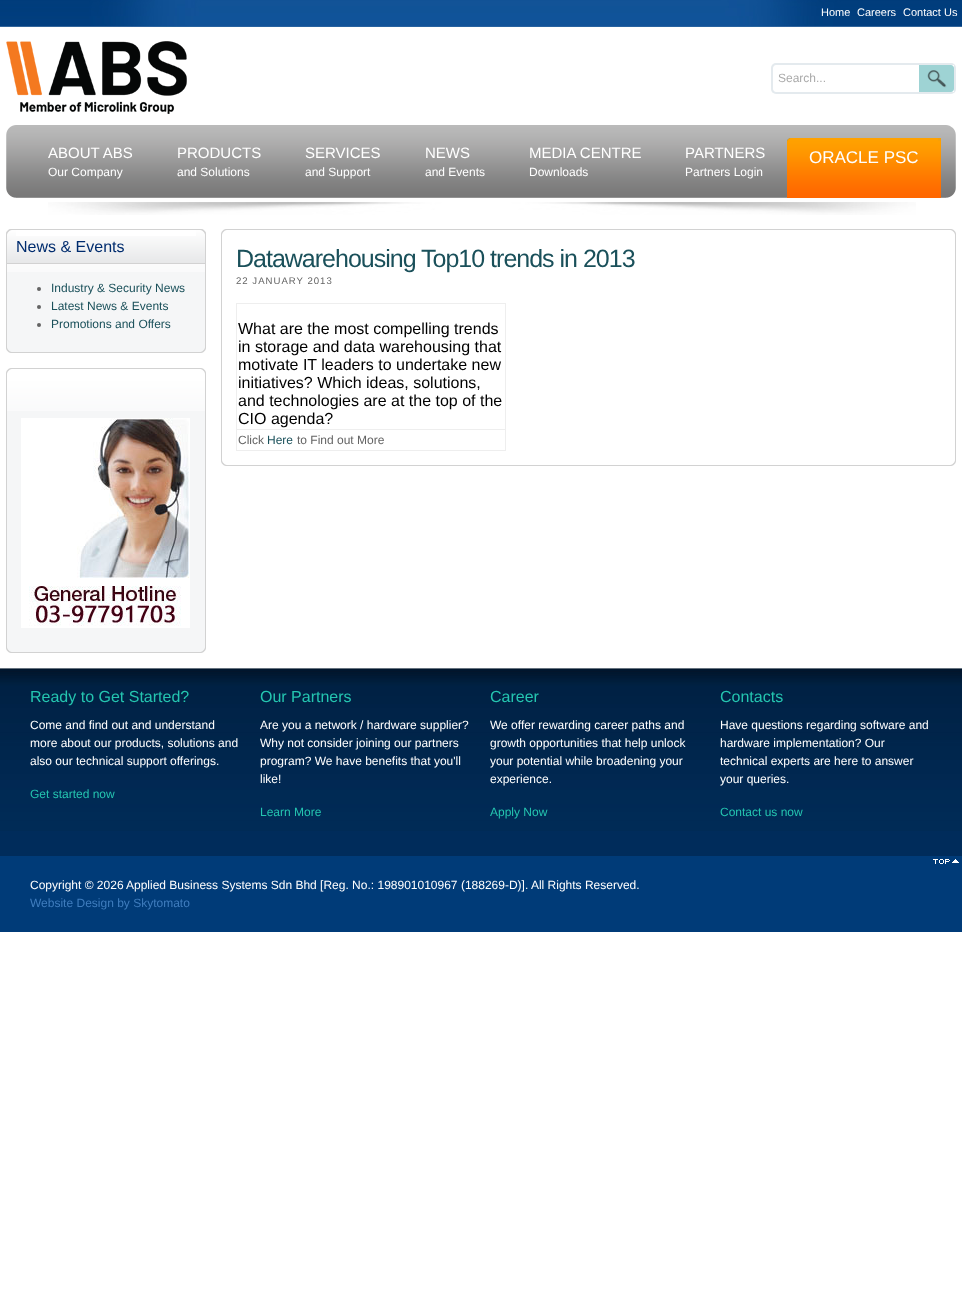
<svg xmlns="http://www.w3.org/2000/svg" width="962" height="1311">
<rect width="100%" height="100%" fill="#fff"/>
<image x="0" y="0" width="962" height="27" href="media/1.png"/>
<text x="821" y="16" style="font-family:Liberation Sans;font-size:11px;fill:#fff">Home</text>
<text x="857" y="16" style="font-family:Liberation Sans;font-size:11px;fill:#fff">Careers</text>
<text x="903" y="16" style="font-family:Liberation Sans;font-size:11px;fill:#fff">Contact Us</text>
<image x="6" y="41" width="181" height="73" href="media/2.png"/>
<rect x="771" y="63" width="185" height="31" rx="5" fill="#e4eaee"/>
<path d="M776 65h178v27h-178c-1.5 0-3-1.5-3-3v-21c0-1.5 1.5-3 3-3z" fill="#fff"/>
<text x="778" y="82" style="font-family:Liberation Sans;font-size:12px;fill:#aaa">Search...</text>
<path d="M919 65h32c1.5 0 3 1.5 3 3v21c0 1.5-1.5 3-3 3h-32z" fill="#9ed3d4"/>
<image x="927" y="70" width="20" height="18" href="media/3.png"/>
<image x="6" y="125" width="20" height="73" href="media/4.png"/>
<image x="936" y="125" width="20" height="73" href="media/5.png"/>
<image x="26" y="125" width="910" height="73" href="media/6.png"/>
<text x="48" y="158" style="font-family:Liberation Sans;font-size:15px;fill:#fff">ABOUT ABS</text>
<text x="48" y="176" style="font-family:Liberation Sans;font-size:12px;fill:#fff">Our Company</text>
<text x="177" y="158" style="font-family:Liberation Sans;font-size:15px;fill:#fff">PRODUCTS</text>
<text x="177" y="176" style="font-family:Liberation Sans;font-size:12px;fill:#fff">and Solutions</text>
<text x="305" y="158" style="font-family:Liberation Sans;font-size:15px;fill:#fff">SERVICES</text>
<text x="305" y="176" style="font-family:Liberation Sans;font-size:12px;fill:#fff">and Support</text>
<text x="425" y="158" style="font-family:Liberation Sans;font-size:15px;fill:#fff">NEWS</text>
<text x="425" y="176" style="font-family:Liberation Sans;font-size:12px;fill:#fff">and Events</text>
<text x="529" y="158" style="font-family:Liberation Sans;font-size:15px;fill:#fff">MEDIA CENTRE</text>
<text x="529" y="176" style="font-family:Liberation Sans;font-size:12px;fill:#fff">Downloads</text>
<text x="685" y="158" style="font-family:Liberation Sans;font-size:15px;fill:#fff">PARTNERS</text>
<text x="685" y="176" style="font-family:Liberation Sans;font-size:12px;fill:#fff">Partners Login</text>
<image x="787" y="138" width="154" height="60" href="media/7.png"/>
<rect x="938" y="138" width="3" height="3" fill="#f7a006"/>
<text x="809" y="163" style="font-family:Liberation Sans;font-size:17px;fill:#fff">ORACLE PSC</text>
<image x="48" y="202" width="868" height="13" href="media/8.png"/>
<image x="6" y="229" width="5" height="5" href="media/9.png"/>
<image x="201" y="229" width="5" height="5" href="media/10.png"/>
<rect x="16" y="229" width="180" height="1" fill="#d2d2d2"/>
<image x="6" y="229" width="10" height="35" href="media/11.png"/>
<image x="196" y="229" width="10" height="35" href="media/12.png"/>
<image x="16" y="236" width="180" height="28" href="media/13.png"/>
<text x="16" y="252" style="font-family:Liberation Sans;font-size:16px;fill:#002c6e">News &amp; Events</text>
<rect x="7" y="272" width="198" height="71" fill="#f5f6f7"/>
<image x="7" y="264" width="198" height="8" href="media/14.png"/>
<rect x="205" y="264" width="1" height="79" fill="#d2d2d2"/>
<rect x="6" y="264" width="1" height="79" fill="#d2d2d2"/>
<circle cx="39" cy="289" r="2" fill="#646464"/>
<text x="51" y="292" style="font-family:Liberation Sans;font-size:12px;fill:#1a505a">Industry &amp; Security News</text>
<circle cx="39" cy="307" r="2" fill="#646464"/>
<text x="51" y="310" style="font-family:Liberation Sans;font-size:12px;fill:#1a505a">Latest News &amp; Events</text>
<circle cx="39" cy="325" r="2" fill="#646464"/>
<text x="51" y="328" style="font-family:Liberation Sans;font-size:12px;fill:#1a505a">Promotions and Offers</text>
<image x="6" y="343" width="10" height="10" href="media/15.png"/>
<image x="196" y="343" width="10" height="10" href="media/16.png"/>
<rect x="16" y="343" width="180" height="9" fill="#f5f6f7"/>
<rect x="16" y="352" width="180" height="1" fill="#d2d2d2"/>
<image x="6" y="368" width="10" height="10" href="media/17.png"/>
<image x="196" y="368" width="10" height="10" href="media/18.png"/>
<rect x="16" y="368" width="180" height="1" fill="#d2d2d2"/>
<rect x="7" y="411" width="198" height="232" fill="#f5f6f7"/>
<image x="7" y="378" width="198" height="33" href="media/19.png"/>
<rect x="205" y="378" width="1" height="265" fill="#d2d2d2"/>
<rect x="6" y="378" width="1" height="265" fill="#d2d2d2"/>
<image x="21" y="418" width="169" height="210" href="media/20.png"/>
<image x="6" y="643" width="10" height="10" href="media/15.png"/>
<image x="196" y="643" width="10" height="10" href="media/16.png"/>
<rect x="16" y="643" width="180" height="9" fill="#f5f6f7"/>
<rect x="16" y="652" width="180" height="1" fill="#d2d2d2"/>
<image x="221" y="229" width="10" height="10" href="media/17.png"/>
<image x="946" y="229" width="10" height="10" href="media/18.png"/>
<rect x="231" y="229" width="715" height="1" fill="#d2d2d2"/>
<rect x="955" y="239" width="1" height="217" fill="#d2d2d2"/>
<rect x="221" y="239" width="1" height="217" fill="#d2d2d2"/>
<text x="236" y="267" style="font-family:Liberation Sans;font-size:25px;letter-spacing:-1px;fill:#1a505a">Datawarehousing Top10 trends in 2013</text>
<text x="236" y="284" style="font-family:Liberation Sans;font-size:9.6px;letter-spacing:1px;fill:#646464">22 JANUARY 2013</text>
<rect x="236" y="303" width="270" height="1" fill="#eee"/>
<rect x="236" y="429" width="270" height="1" fill="#eee"/>
<rect x="505" y="429" width="1" height="22" fill="#eee"/>
<rect x="505" y="303" width="1" height="127" fill="#eee"/>
<rect x="236" y="450" width="270" height="1" fill="#eee"/>
<rect x="236" y="429" width="1" height="22" fill="#eee"/>
<rect x="236" y="303" width="1" height="127" fill="#eee"/>
<text x="238" y="334" style="font-family:Liberation Sans;font-size:16px;fill:#000">What are the most compelling trends</text>
<text x="238" y="352" style="font-family:Liberation Sans;font-size:16px;fill:#000">in storage and data warehousing that</text>
<text x="238" y="370" style="font-family:Liberation Sans;font-size:16px;fill:#000">motivate IT leaders to undertake new</text>
<text x="238" y="388" style="font-family:Liberation Sans;font-size:16px;fill:#000">initiatives? Which ideas, solutions,</text>
<text x="238" y="406" style="font-family:Liberation Sans;font-size:16px;fill:#000">and technologies are at the top of the</text>
<text x="238" y="424" style="font-family:Liberation Sans;font-size:16px;fill:#000">CIO agenda?</text>
<text x="238" y="444" style="font-family:Liberation Sans;font-size:12px;fill:#646464">Click</text>
<text x="267" y="444" style="font-family:Liberation Sans;font-size:12px;fill:#1a505a">Here</text>
<text x="297" y="444" style="font-family:Liberation Sans;font-size:12px;fill:#646464">to Find out More</text>
<image x="221" y="456" width="10" height="10" href="media/21.png"/>
<image x="946" y="456" width="10" height="10" href="media/22.png"/>
<rect x="231" y="465" width="715" height="1" fill="#d2d2d2"/>
<rect y="831" width="962" height="25" fill="#002c5b"/>
<image x="0" y="668" width="962" height="163" href="media/23.png"/>
<text x="30" y="702" style="font-family:Liberation Sans;font-size:16px;fill:#24c5b0">Ready to Get Started?</text>
<text x="30" y="729" style="font-family:Liberation Sans;font-size:12px;fill:#fff">Come and find out and understand</text>
<text x="30" y="747" style="font-family:Liberation Sans;font-size:12px;fill:#fff">more about our products, solutions and</text>
<text x="30" y="765" style="font-family:Liberation Sans;font-size:12px;fill:#fff">also our technical support offerings.</text>
<text x="30" y="798" style="font-family:Liberation Sans;font-size:12px;fill:#24c5b0">Get started now</text>
<text x="260" y="702" style="font-family:Liberation Sans;font-size:16px;fill:#24c5b0">Our Partners</text>
<text x="260" y="729" style="font-family:Liberation Sans;font-size:12px;fill:#fff">Are you a network / hardware supplier?</text>
<text x="260" y="747" style="font-family:Liberation Sans;font-size:12px;fill:#fff">Why not consider joining our partners</text>
<text x="260" y="765" style="font-family:Liberation Sans;font-size:12px;fill:#fff">program? We have benefits that you'll</text>
<text x="260" y="783" style="font-family:Liberation Sans;font-size:12px;fill:#fff">like!</text>
<text x="260" y="816" style="font-family:Liberation Sans;font-size:12px;fill:#24c5b0">Learn More</text>
<text x="490" y="702" style="font-family:Liberation Sans;font-size:16px;fill:#24c5b0">Career</text>
<text x="490" y="729" style="font-family:Liberation Sans;font-size:12px;fill:#fff">We offer rewarding career paths and</text>
<text x="490" y="747" style="font-family:Liberation Sans;font-size:12px;fill:#fff">growth opportunities that help unlock</text>
<text x="490" y="765" style="font-family:Liberation Sans;font-size:12px;fill:#fff">your potential while broadening your</text>
<text x="490" y="783" style="font-family:Liberation Sans;font-size:12px;fill:#fff">experience.</text>
<text x="490" y="816" style="font-family:Liberation Sans;font-size:12px;fill:#24c5b0">Apply Now</text>
<text x="720" y="702" style="font-family:Liberation Sans;font-size:16px;fill:#24c5b0">Contacts</text>
<text x="720" y="729" style="font-family:Liberation Sans;font-size:12px;fill:#fff">Have questions regarding software and</text>
<text x="720" y="747" style="font-family:Liberation Sans;font-size:12px;fill:#fff">hardware implementation? Our</text>
<text x="720" y="765" style="font-family:Liberation Sans;font-size:12px;fill:#fff">technical experts are here to answer</text>
<text x="720" y="783" style="font-family:Liberation Sans;font-size:12px;fill:#fff">your queries.</text>
<text x="720" y="816" style="font-family:Liberation Sans;font-size:12px;fill:#24c5b0">Contact us now</text>
<rect y="856" width="962" height="76" fill="#003b78"/>
<image x="933" y="859" width="26" height="5" href="media/24.png"/>
<text x="30" y="889" style="font-family:Liberation Sans;font-size:12px;fill:#fff">Copyright © 2026</text>
<text x="126" y="889" style="font-family:Liberation Sans;font-size:12px;fill:#fff">Applied Business Systems Sdn Bhd [Reg. No.: 198901010967 (188269-D)]. All Rights Reserved.</text>
<text x="30" y="907" style="font-family:Liberation Sans;font-size:12px;fill:#3f7dbe">Website Design by Skytomato</text>
</svg>
